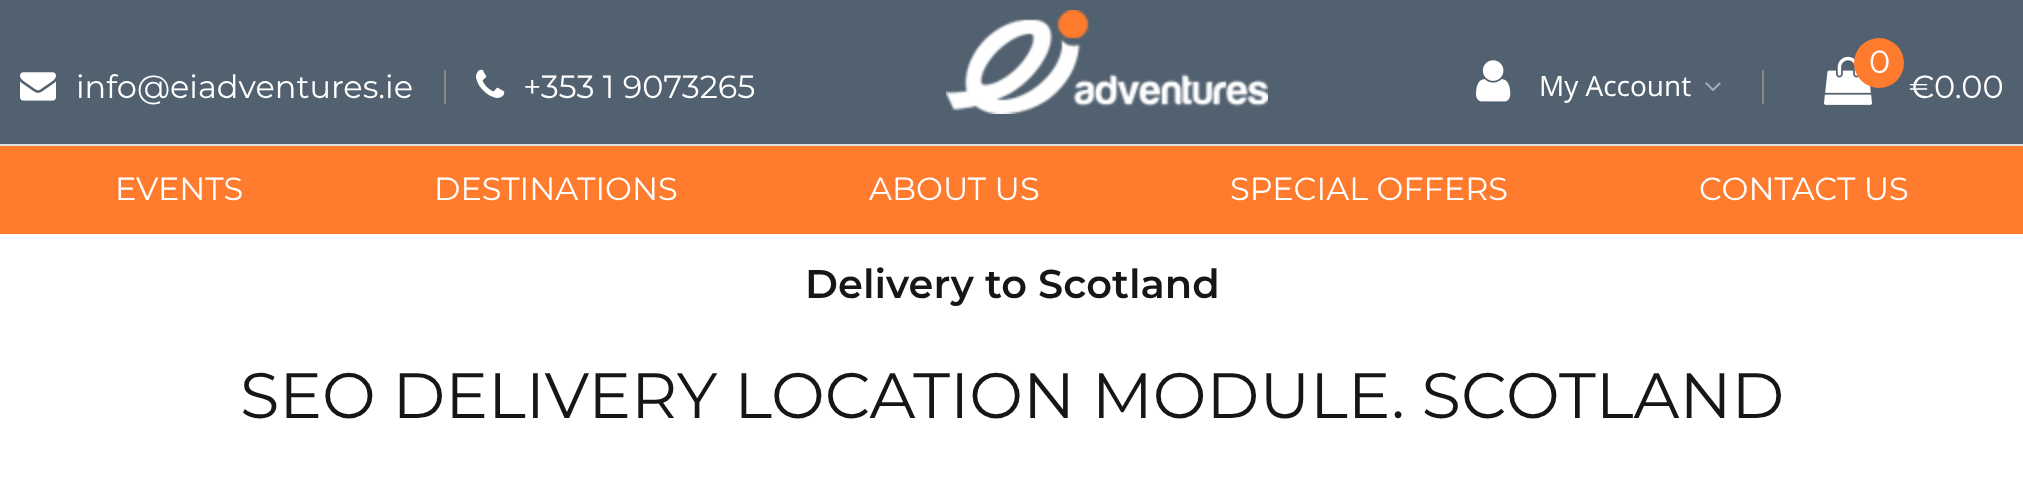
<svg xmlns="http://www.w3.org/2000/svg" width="2023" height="487">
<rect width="100%" height="100%" fill="#fff"/>
<rect width="2023" height="144" fill="#526170"/>
<rect y="144" width="2023" height="2" fill="#e0e0e0"/>
<rect x="444" y="70" width="2" height="34" fill="#878787"/>
<image x="20" y="72" width="36" height="29" href="media/1.png"/>
<text x="76" y="98" style="font-family:Montserrat;font-size:32px;fill:#fff">info@eiadventures.ie</text>
<image x="476" y="69" width="29" height="29" href="media/2.png"/>
<text x="523" y="98" style="font-family:Montserrat;font-size:32px;fill:#fff">+353 1 9073265</text>
<image x="946" y="10" width="322" height="104" href="media/3.png"/>
<image x="1476" y="60" width="35" height="42" href="media/4.png"/>
<rect x="1762" y="70" width="2" height="34" fill="#878787"/>
<text x="1539" y="96" style="font-family:Open Sans;font-size:28px;fill:#fff">My Account</text>
<image x="1705" y="82" width="16" height="10" href="media/5.png"/>
<image x="1824" y="56" width="48" height="49" href="media/6.png"/>
<circle cx="1879" cy="63" r="25" fill="#ff7b2d"/>
<text x="1869" y="73" style="font-family:Montserrat;font-size:32px;fill:#fff">0</text>
<text x="1909" y="98" style="font-family:Montserrat;font-size:32px;fill:#fff">€0.00</text>
<rect y="146" width="2023" height="88" fill="#ff7b2d"/>
<text x="115" y="200" style="font-family:Montserrat;font-size:32px;fill:#fff">EVENTS</text>
<text x="434" y="200" style="font-family:Montserrat;font-size:32px;fill:#fff">DESTINATIONS</text>
<text x="869" y="200" style="font-family:Montserrat;font-size:32px;fill:#fff">ABOUT US</text>
<text x="1230" y="200" style="font-family:Montserrat;font-size:32px;fill:#fff">SPECIAL OFFERS</text>
<text x="1699" y="200" style="font-family:Montserrat;font-size:32px;fill:#fff">CONTACT US</text>
<text x="805" y="298" style="font-family:Montserrat;font-size:40px;font-weight:600;fill:#161616">Delivery to Scotland</text>
<text x="240" y="418" style="font-family:Montserrat;font-size:64px;fill:#161616">SEO DELIVERY LOCATION MODULE. SCOTLAND</text>
</svg>
